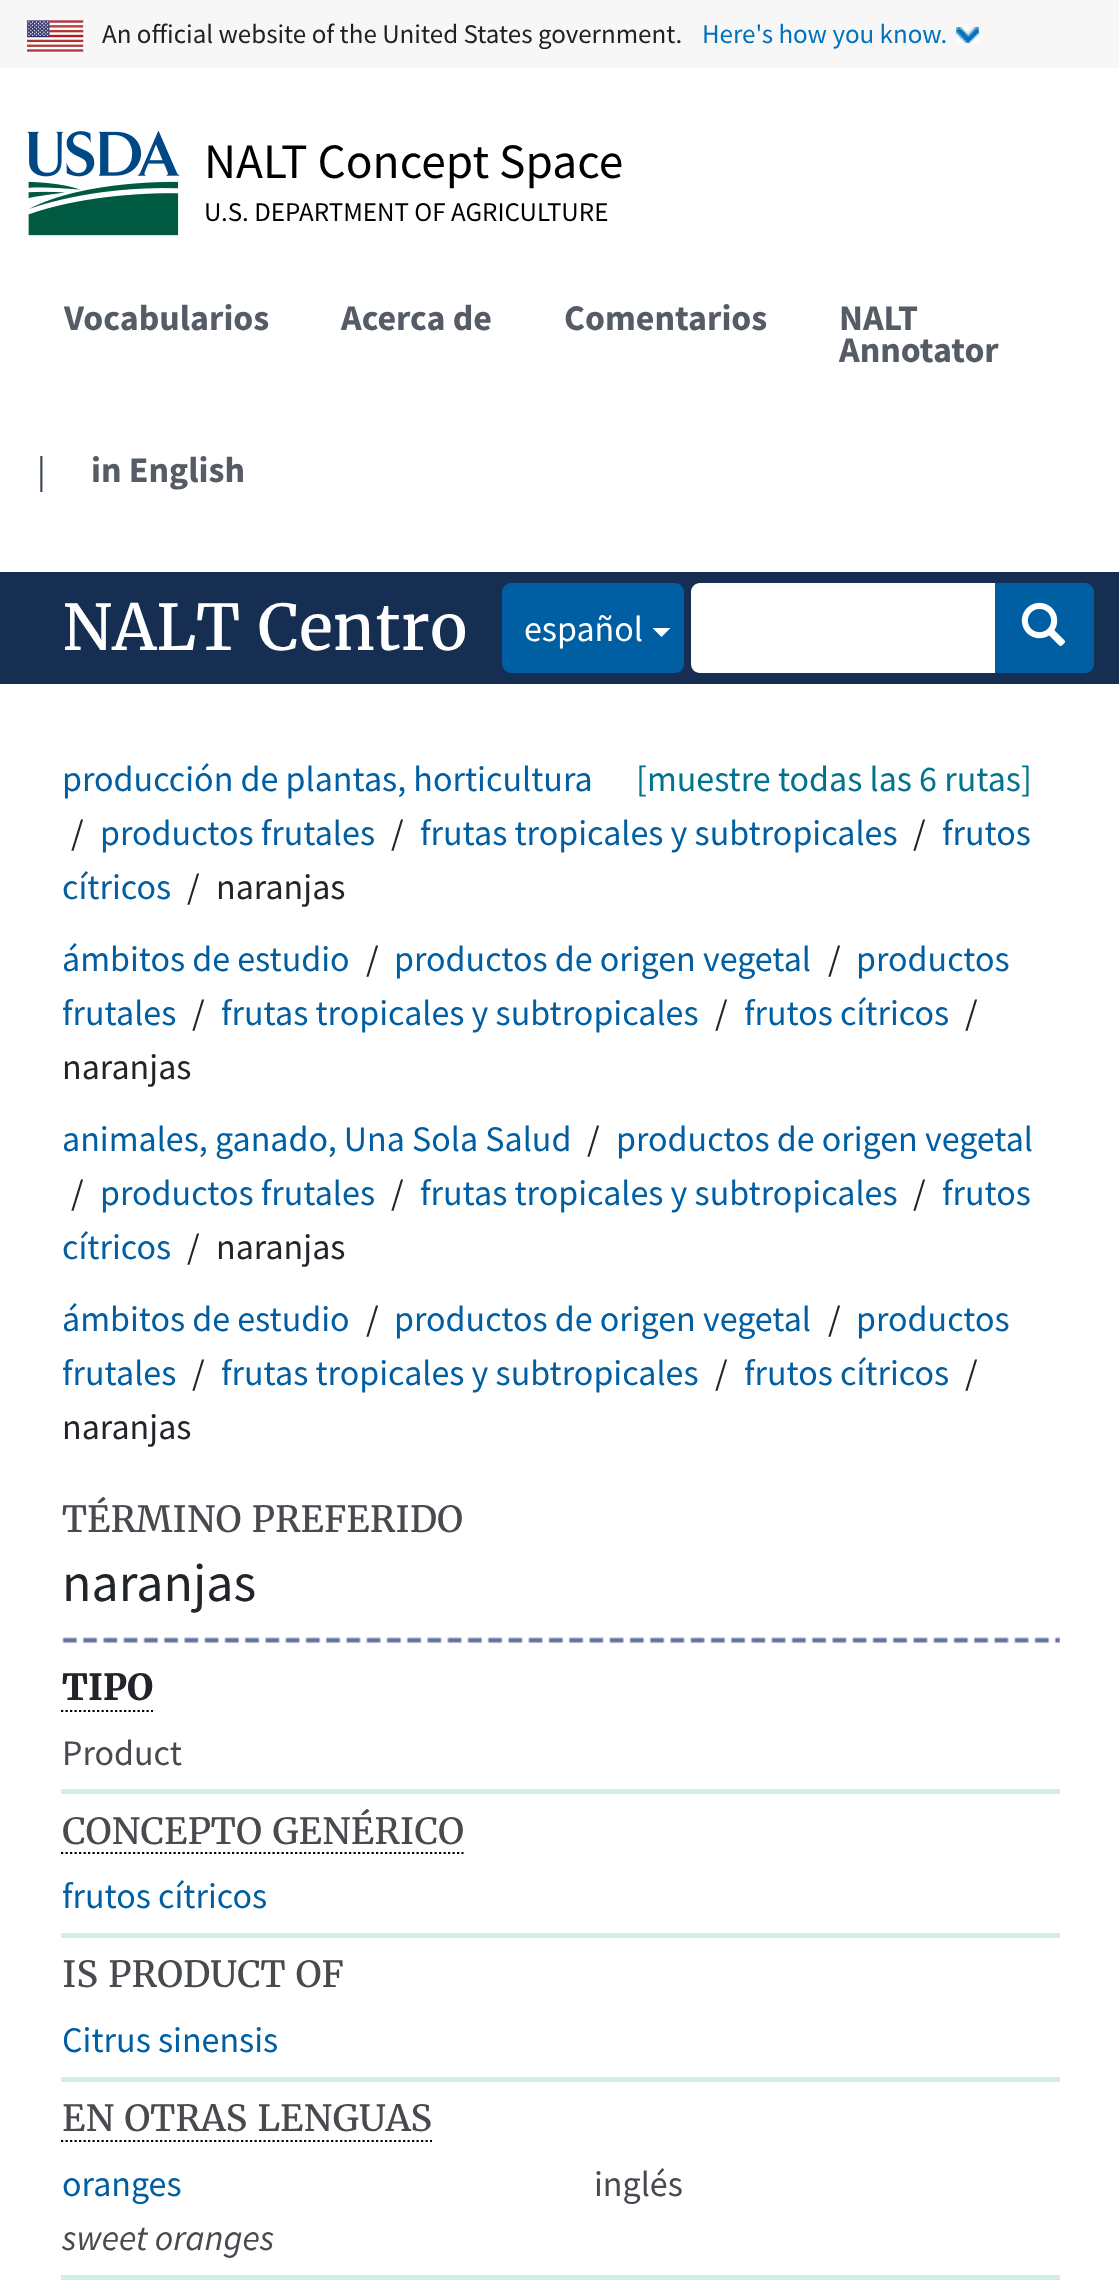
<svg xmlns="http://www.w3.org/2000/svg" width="1119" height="2284">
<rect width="100%" height="100%" fill="#fff"/>
<rect width="1119" height="68" fill="#f7f7f7"/>
<image x="27" y="20" width="57" height="32" href="media/1.png"/>
<text x="102" y="43" style="font-family:Source Sans Pro;font-size:27px;fill:#212121">An official website of the United States government.</text>
<image x="956" y="27" width="23" height="16" href="media/2.png"/>
<text x="702" y="43" style="font-family:Source Sans Pro;font-size:27px;fill:#0071bc">Here's how you know.</text>
<image x="27" y="131" width="153" height="105" href="media/3.png"/>
<text x="204" y="178" style="font-family:Source Sans Pro;font-size:49.5px;fill:#000">NALT Concept Space</text>
<text x="204" y="221" style="font-family:Source Sans Pro;font-size:27px;fill:#000">U.S. DEPARTMENT OF AGRICULTURE</text>
<text x="64" y="330" style="font-family:Source Sans Pro;font-size:36px;font-weight:bold;fill:#565c65">Vocabularios</text>
<text x="341" y="330" style="font-family:Source Sans Pro;font-size:36px;font-weight:bold;fill:#565c65">Acerca de</text>
<text x="564" y="330" style="font-family:Source Sans Pro;font-size:36px;font-weight:bold;fill:#565c65">Comentarios</text>
<text x="839" y="330" style="font-family:Source Sans Pro;font-size:36px;font-weight:bold;fill:#565c65">NALT</text>
<text x="839" y="362" style="font-family:Source Sans Pro;font-size:36px;font-weight:bold;fill:#565c65">Annotator</text>
<text x="37" y="483" style="font-family:Source Sans Pro;font-size:36px;fill:#394554">|</text>
<text x="91" y="482" style="font-family:Source Sans Pro;font-size:36px;font-weight:bold;fill:#565c65">in English</text>
<rect y="572" width="1119" height="112" fill="#162e51"/>
<text x="62" y="650" style="font-family:Merriweather;font-size:63px;fill:#fff">NALT Centro</text>
<rect x="502" y="583" width="182" height="90" rx="9" fill="#005ea2"/>
<text x="524" y="641" style="font-family:Source Sans Pro;font-size:36px;fill:#fff">español</text>
<path d="M652.5 628h18l-9 9z" fill="#fff"/>
<path d="M700 583h297v90h-297c-5 0-9-4-9-9v-72c0-5 4-9 9-9z" fill="#fff"/>
<path d="M995 583h90c5 0 9 4 9 9v72c0 5-4 9-9 9h-90z" fill="#005ea2"/>
<image x="1021" y="602" width="45" height="44" href="media/4.png"/>
<text x="62" y="791" style="font-family:Source Sans Pro;font-size:36px;fill:#005ea2">producción de plantas, horticultura</text>
<text x="71" y="845" style="font-family:Source Sans Pro;font-size:36px;fill:#212529">/</text>
<text x="100" y="845" style="font-family:Source Sans Pro;font-size:36px;fill:#005ea2">productos frutales</text>
<text x="391" y="845" style="font-family:Source Sans Pro;font-size:36px;fill:#212529">/</text>
<text x="420" y="845" style="font-family:Source Sans Pro;font-size:36px;fill:#005ea2">frutas tropicales y subtropicales</text>
<text x="913" y="845" style="font-family:Source Sans Pro;font-size:36px;fill:#212529">/</text>
<text x="942" y="845" style="font-family:Source Sans Pro;font-size:36px;fill:#005ea2">frutos</text>
<text x="62" y="899" style="font-family:Source Sans Pro;font-size:36px;fill:#005ea2">cítricos</text>
<text x="187" y="899" style="font-family:Source Sans Pro;font-size:36px;fill:#212529">/</text>
<text x="216" y="899" style="font-family:Source Sans Pro;font-size:36px;fill:#212529">naranjas</text>
<text x="636" y="791" style="font-family:Source Sans Pro;font-size:36px;fill:#00748f">[muestre todas las 6 rutas]</text>
<text x="62" y="971" style="font-family:Source Sans Pro;font-size:36px;fill:#005ea2">ámbitos de estudio</text>
<text x="366" y="971" style="font-family:Source Sans Pro;font-size:36px;fill:#212529">/</text>
<text x="394" y="971" style="font-family:Source Sans Pro;font-size:36px;fill:#005ea2">productos de origen vegetal</text>
<text x="828" y="971" style="font-family:Source Sans Pro;font-size:36px;fill:#212529">/</text>
<text x="856" y="971" style="font-family:Source Sans Pro;font-size:36px;fill:#005ea2">productos</text>
<text x="62" y="1025" style="font-family:Source Sans Pro;font-size:36px;fill:#005ea2">frutales</text>
<text x="192" y="1025" style="font-family:Source Sans Pro;font-size:36px;fill:#212529">/</text>
<text x="221" y="1025" style="font-family:Source Sans Pro;font-size:36px;fill:#005ea2">frutas tropicales y subtropicales</text>
<text x="715" y="1025" style="font-family:Source Sans Pro;font-size:36px;fill:#212529">/</text>
<text x="744" y="1025" style="font-family:Source Sans Pro;font-size:36px;fill:#005ea2">frutos cítricos</text>
<text x="965" y="1025" style="font-family:Source Sans Pro;font-size:36px;fill:#212529">/</text>
<text x="62" y="1079" style="font-family:Source Sans Pro;font-size:36px;fill:#212529">naranjas</text>
<text x="62" y="1151" style="font-family:Source Sans Pro;font-size:36px;fill:#005ea2">animales, ganado, Una Sola Salud</text>
<text x="587" y="1151" style="font-family:Source Sans Pro;font-size:36px;fill:#212529">/</text>
<text x="616" y="1151" style="font-family:Source Sans Pro;font-size:36px;fill:#005ea2">productos de origen vegetal</text>
<text x="71" y="1205" style="font-family:Source Sans Pro;font-size:36px;fill:#212529">/</text>
<text x="100" y="1205" style="font-family:Source Sans Pro;font-size:36px;fill:#005ea2">productos frutales</text>
<text x="391" y="1205" style="font-family:Source Sans Pro;font-size:36px;fill:#212529">/</text>
<text x="420" y="1205" style="font-family:Source Sans Pro;font-size:36px;fill:#005ea2">frutas tropicales y subtropicales</text>
<text x="913" y="1205" style="font-family:Source Sans Pro;font-size:36px;fill:#212529">/</text>
<text x="942" y="1205" style="font-family:Source Sans Pro;font-size:36px;fill:#005ea2">frutos</text>
<text x="62" y="1259" style="font-family:Source Sans Pro;font-size:36px;fill:#005ea2">cítricos</text>
<text x="187" y="1259" style="font-family:Source Sans Pro;font-size:36px;fill:#212529">/</text>
<text x="216" y="1259" style="font-family:Source Sans Pro;font-size:36px;fill:#212529">naranjas</text>
<text x="62" y="1331" style="font-family:Source Sans Pro;font-size:36px;fill:#005ea2">ámbitos de estudio</text>
<text x="366" y="1331" style="font-family:Source Sans Pro;font-size:36px;fill:#212529">/</text>
<text x="394" y="1331" style="font-family:Source Sans Pro;font-size:36px;fill:#005ea2">productos de origen vegetal</text>
<text x="828" y="1331" style="font-family:Source Sans Pro;font-size:36px;fill:#212529">/</text>
<text x="856" y="1331" style="font-family:Source Sans Pro;font-size:36px;fill:#005ea2">productos</text>
<text x="62" y="1385" style="font-family:Source Sans Pro;font-size:36px;fill:#005ea2">frutales</text>
<text x="192" y="1385" style="font-family:Source Sans Pro;font-size:36px;fill:#212529">/</text>
<text x="221" y="1385" style="font-family:Source Sans Pro;font-size:36px;fill:#005ea2">frutas tropicales y subtropicales</text>
<text x="715" y="1385" style="font-family:Source Sans Pro;font-size:36px;fill:#212529">/</text>
<text x="744" y="1385" style="font-family:Source Sans Pro;font-size:36px;fill:#005ea2">frutos cítricos</text>
<text x="965" y="1385" style="font-family:Source Sans Pro;font-size:36px;fill:#212529">/</text>
<text x="62" y="1439" style="font-family:Source Sans Pro;font-size:36px;fill:#212529">naranjas</text>
<text x="62" y="1532" style="font-family:Merriweather;font-size:36px;fill:#474b4f">TÉRMINO PREFERIDO</text>
<text x="62" y="1601" style="font-family:Source Sans Pro;font-size:54px;fill:#212529">naranjas</text>
<image x="62" y="1637" width="998" height="7" href="media/5.png"/>
<text x="62" y="1700" style="font-family:Merriweather;font-size:36px;font-weight:bold;fill:#212529">TIPO</text>
<path d="M61 1711h92" fill="none" stroke="#000" stroke-width="2.2" stroke-dasharray="2.25 2.25"/>
<rect x="61" y="1789" width="999" height="5" fill="#d4edeb"/>
<text x="62" y="1765" style="font-family:Source Sans Pro;font-size:36px;fill:#474b4f">Product</text>
<text x="62" y="1844" style="font-family:Merriweather;font-size:36px;fill:#474b4f">CONCEPTO GENÉRICO</text>
<path d="M61 1853h402.5" fill="none" stroke="#000" stroke-width="2.2" stroke-dasharray="2.25 2.25"/>
<rect x="61" y="1933" width="999" height="5" fill="#d4edeb"/>
<text x="62" y="1908" style="font-family:Source Sans Pro;font-size:36px;fill:#005ea2">frutos cítricos</text>
<text x="62" y="1987" style="font-family:Merriweather;font-size:36px;fill:#474b4f">IS PRODUCT OF</text>
<rect x="61" y="2077" width="999" height="5" fill="#d4edeb"/>
<text x="62" y="2052" style="font-family:Source Sans Pro;font-size:36px;fill:#005ea2">Citrus sinensis</text>
<text x="62" y="2131" style="font-family:Merriweather;font-size:36px;fill:#474b4f">EN OTRAS LENGUAS</text>
<path d="M61 2141h371" fill="none" stroke="#000" stroke-width="2.2" stroke-dasharray="2.25 2.25"/>
<rect x="61" y="2275" width="999" height="5" fill="#d4edeb"/>
<text x="62" y="2196" style="font-family:Source Sans Pro;font-size:36px;fill:#005ea2">oranges</text>
<text x="594" y="2196" style="font-family:Source Sans Pro;font-size:36px;fill:#474b4f">inglés</text>
<text x="62" y="2250" style="font-family:Source Sans Pro;font-size:36px;font-style:italic;fill:#474b4f">sweet oranges</text>
</svg>
